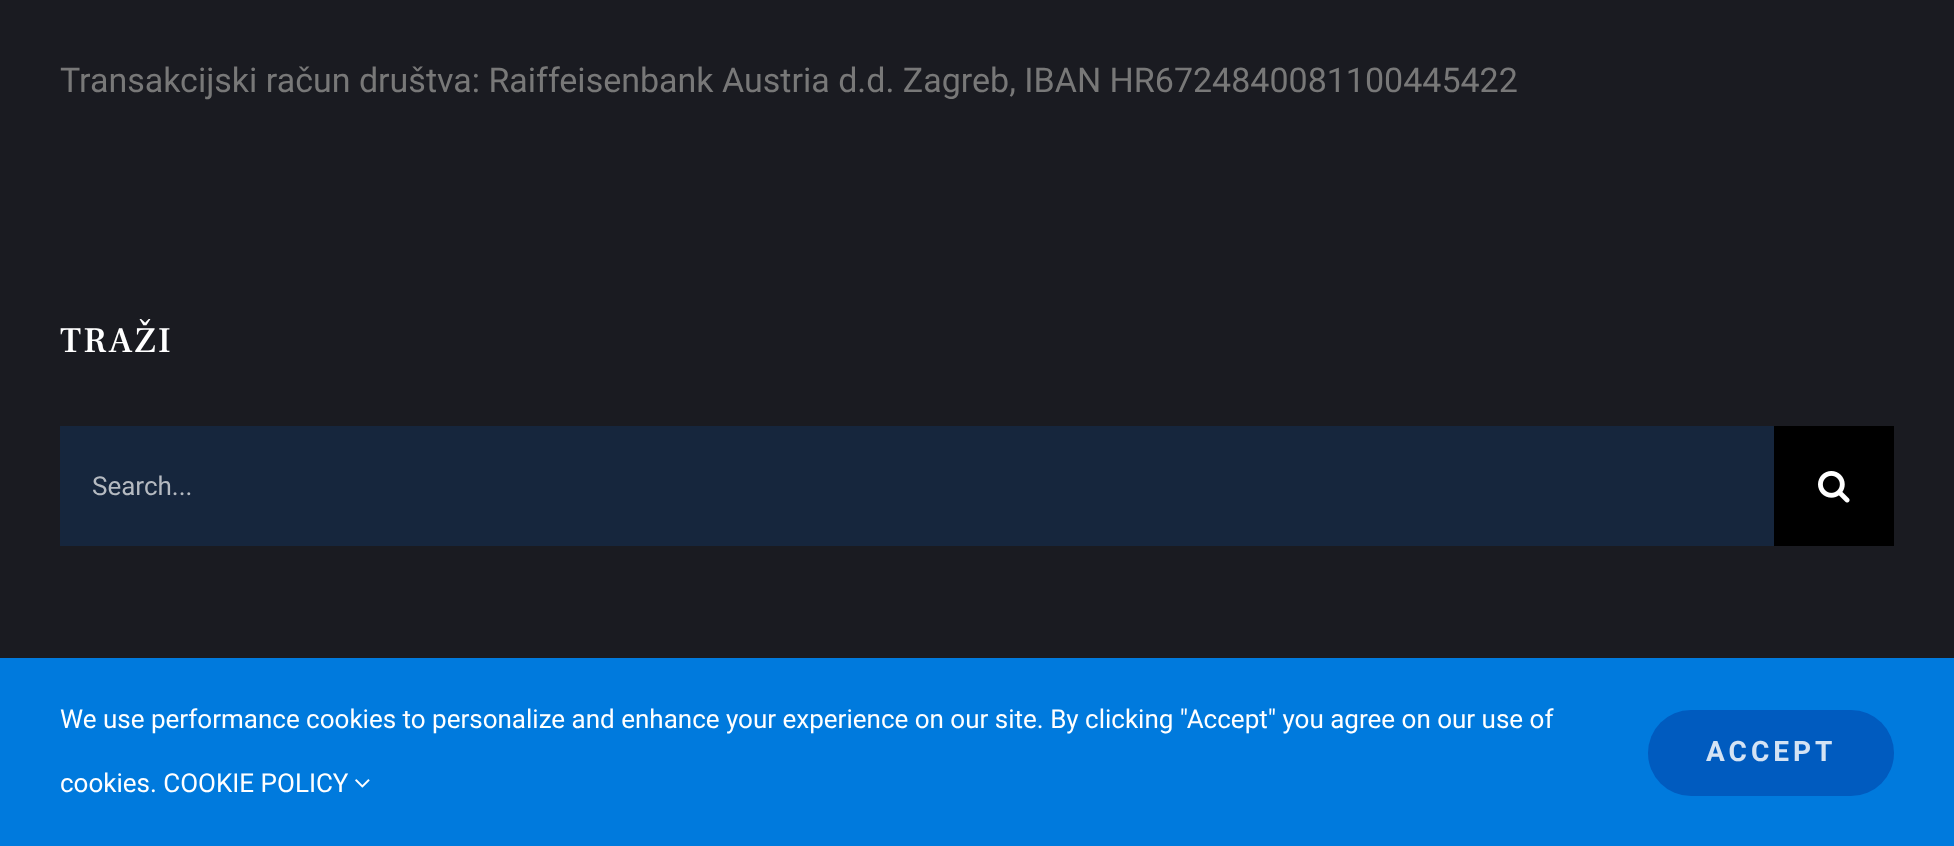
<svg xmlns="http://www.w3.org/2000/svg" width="1954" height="846">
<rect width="100%" height="100%" fill="#1a1b21"/>
<text x="60" y="92" style="font-family:Roboto;font-size:34px;fill:#787878">Transakcijski račun društva: Raiffeisenbank Austria d.d. Zagreb, IBAN HR6724840081100445422</text>
<text x="60" y="352" style="font-family:Frank Ruhl Libre;font-size:36px;font-weight:500;letter-spacing:2px;fill:#fff">TRAŽI</text>
<rect x="60" y="426" width="1714" height="120" fill="#16263d"/>
<text x="92" y="495" style="font-family:Roboto;font-size:26px;fill:#b5bac1">Search...</text>
<rect x="1774" y="426" width="120" height="120" fill="#000"/>
<image x="1818" y="471" width="32" height="32" href="media/1.png"/>
<rect y="658" width="1954" height="188" fill="#007add"/>
<text x="60" y="728" style="font-family:Roboto;font-size:26px;fill:#fff">We use performance cookies to personalize and enhance your experience on our site. By clicking "Accept" you agree on our use of</text>
<text x="60" y="792" style="font-family:Roboto;font-size:26px;fill:#fff">cookies. COOKIE POLICY</text>
<image x="355" y="779" width="15" height="9" href="media/2.png"/>
<rect x="1648" y="710" width="246" height="86" rx="43" fill="#005bbf"/>
<text x="1706" y="761" style="font-family:Roboto;font-size:28px;font-weight:bold;letter-spacing:4px;fill:#d4e3f4">ACCEPT</text>
</svg>
